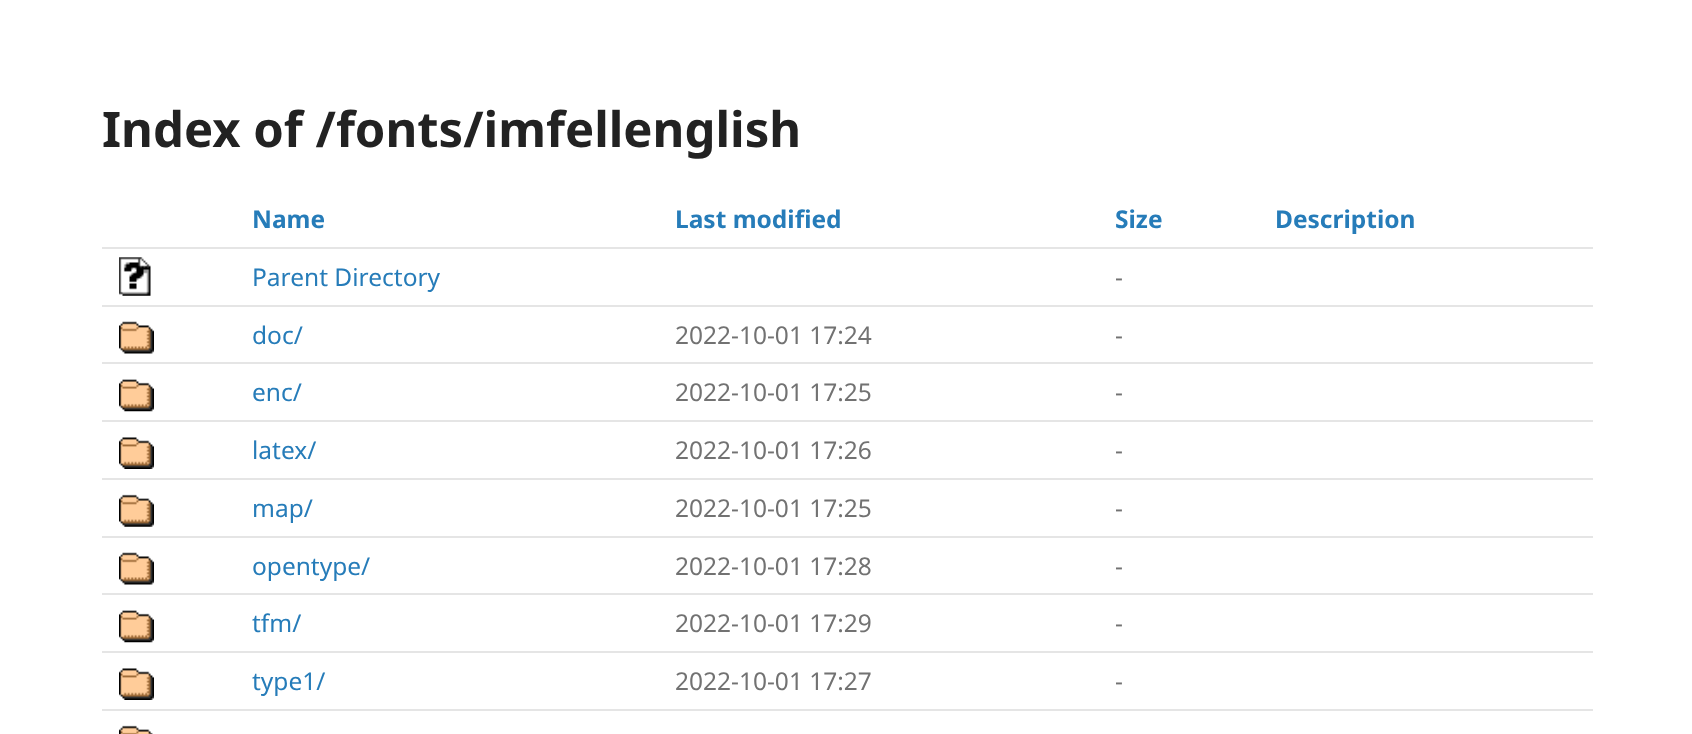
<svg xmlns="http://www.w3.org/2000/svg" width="1692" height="734">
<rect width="100%" height="100%" fill="#fff"/>
<text x="102" y="147" style="font-family:Noto Sans;font-size:49px;font-weight:bold;fill:#222">Index of /fonts/imfellenglish</text>
<text x="252" y="228" style="font-family:Noto Sans;font-size:24.5px;font-weight:bold;fill:#267cb9">Name</text>
<text x="675" y="228" style="font-family:Noto Sans;font-size:24.5px;font-weight:bold;fill:#267cb9">Last modified</text>
<text x="1115" y="228" style="font-family:Noto Sans;font-size:24.5px;font-weight:bold;fill:#267cb9">Size</text>
<rect x="102" y="247" width="1491" height="2" fill="#e5e5e5"/>
<text x="1275" y="228" style="font-family:Noto Sans;font-size:24.5px;font-weight:bold;fill:#267cb9">Description</text>
<image x="119" y="257" width="32" height="39" href="media/1.png"/>
<text x="252" y="286" style="font-family:Noto Sans;font-size:24.5px;fill:#267cb9">Parent Directory</text>
<text x="1115" y="286" style="font-family:Noto Sans;font-size:24.5px;fill:#727272">-</text>
<rect x="102" y="305" width="1491" height="2" fill="#e5e5e5"/>
<image x="119" y="321" width="35" height="33" href="media/2.png"/>
<text x="252" y="344" style="font-family:Noto Sans;font-size:24.5px;fill:#267cb9">doc/</text>
<text x="675" y="344" style="font-family:Noto Sans;font-size:24.5px;fill:#727272">2022-10-01 17:24</text>
<text x="1115" y="344" style="font-family:Noto Sans;font-size:24.5px;fill:#727272">-</text>
<rect x="102" y="362" width="1491" height="2" fill="#e5e5e5"/>
<image x="119" y="379" width="35" height="33" href="media/3.png"/>
<text x="252" y="401" style="font-family:Noto Sans;font-size:24.5px;fill:#267cb9">enc/</text>
<text x="675" y="401" style="font-family:Noto Sans;font-size:24.5px;fill:#727272">2022-10-01 17:25</text>
<text x="1115" y="401" style="font-family:Noto Sans;font-size:24.5px;fill:#727272">-</text>
<rect x="102" y="420" width="1491" height="2" fill="#e5e5e5"/>
<image x="119" y="437" width="35" height="32" href="media/4.png"/>
<text x="252" y="459" style="font-family:Noto Sans;font-size:24.5px;fill:#267cb9">latex/</text>
<text x="675" y="459" style="font-family:Noto Sans;font-size:24.5px;fill:#727272">2022-10-01 17:26</text>
<text x="1115" y="459" style="font-family:Noto Sans;font-size:24.5px;fill:#727272">-</text>
<rect x="102" y="478" width="1491" height="2" fill="#e5e5e5"/>
<image x="119" y="494" width="35" height="33" href="media/5.png"/>
<text x="252" y="517" style="font-family:Noto Sans;font-size:24.5px;fill:#267cb9">map/</text>
<text x="675" y="517" style="font-family:Noto Sans;font-size:24.5px;fill:#727272">2022-10-01 17:25</text>
<text x="1115" y="517" style="font-family:Noto Sans;font-size:24.5px;fill:#727272">-</text>
<rect x="102" y="536" width="1491" height="2" fill="#e5e5e5"/>
<image x="119" y="552" width="35" height="33" href="media/2.png"/>
<text x="252" y="575" style="font-family:Noto Sans;font-size:24.5px;fill:#267cb9">opentype/</text>
<text x="675" y="575" style="font-family:Noto Sans;font-size:24.5px;fill:#727272">2022-10-01 17:28</text>
<text x="1115" y="575" style="font-family:Noto Sans;font-size:24.5px;fill:#727272">-</text>
<rect x="102" y="593" width="1491" height="2" fill="#e5e5e5"/>
<image x="119" y="610" width="35" height="33" href="media/3.png"/>
<text x="252" y="632" style="font-family:Noto Sans;font-size:24.5px;fill:#267cb9">tfm/</text>
<text x="675" y="632" style="font-family:Noto Sans;font-size:24.5px;fill:#727272">2022-10-01 17:29</text>
<text x="1115" y="632" style="font-family:Noto Sans;font-size:24.5px;fill:#727272">-</text>
<rect x="102" y="651" width="1491" height="2" fill="#e5e5e5"/>
<image x="119" y="668" width="35" height="32" href="media/4.png"/>
<text x="252" y="690" style="font-family:Noto Sans;font-size:24.5px;fill:#267cb9">type1/</text>
<text x="675" y="690" style="font-family:Noto Sans;font-size:24.5px;fill:#727272">2022-10-01 17:27</text>
<text x="1115" y="690" style="font-family:Noto Sans;font-size:24.5px;fill:#727272">-</text>
<rect x="102" y="709" width="1491" height="2" fill="#e5e5e5"/>
<image x="119" y="725" width="34" height="9" href="media/6.png"/>
</svg>
